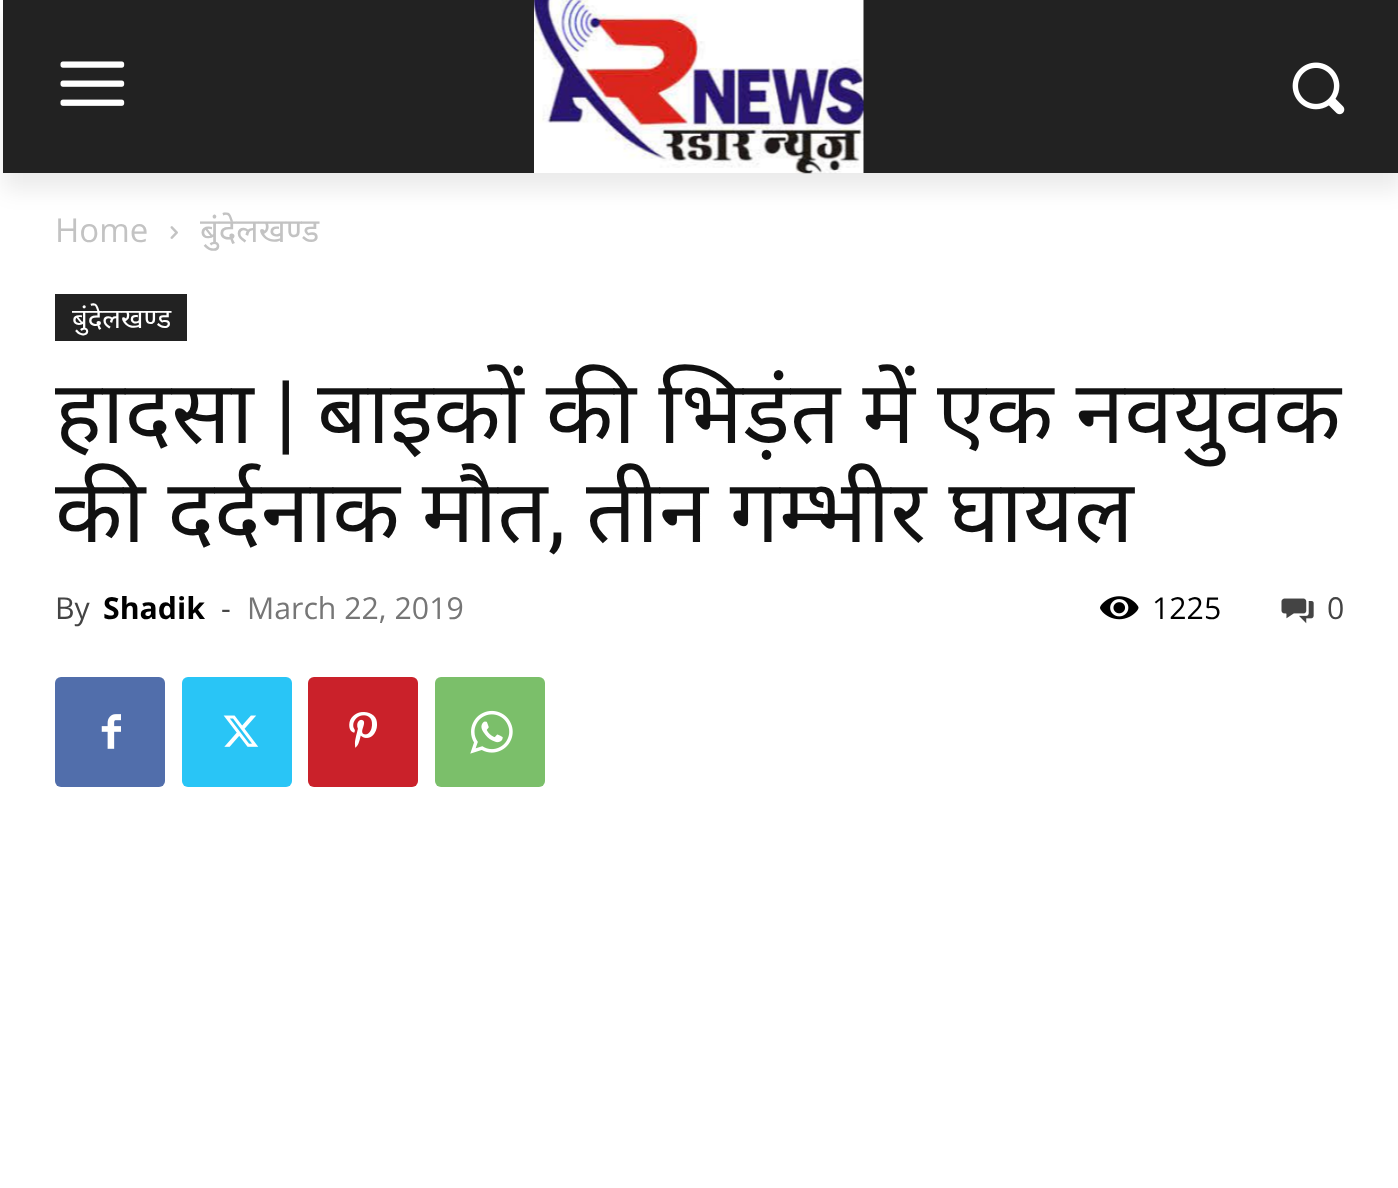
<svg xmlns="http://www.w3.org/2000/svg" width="1398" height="1188">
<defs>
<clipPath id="clip1"><path d="M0 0h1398v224h-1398zm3 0h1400v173h-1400z" clip-rule="evenodd"/></clipPath>
</defs>
<rect width="100%" height="100%" fill="#fff"/>
<rect x="3" width="1395" height="173" fill="#222"/>
<image x="60" y="61" width="65" height="45" href="media/1.png"/>
<image x="534" y="0" width="330" height="174" href="media/2.png"/>
<image x="1292" y="62" width="53" height="53" href="media/3.png"/>
<g clip-path="url(#clip1)">
<rect x="3" y="17" width="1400" height="173" fill="#00000014" filter="blur(11px)"/>
</g>
<text x="55" y="242" style="font-family:Open Sans;font-size:33px;fill:#c3c3c3">Home</text>
<image x="170" y="226" width="8" height="13" href="media/4.png"/>
<text x="200" y="242" style="font-family:Noto Sans;font-size:33px;fill:#c3c3c3">बुंदेलखण्ड</text>
<rect x="55" y="294" width="132" height="47" fill="#222"/>
<text x="72" y="328" style="font-family:Noto Sans;font-size:27.5px;fill:#fff">बुंदेलखण्ड</text>
<text x="55" y="443" style="font-family:Noto Sans;font-size:88px;fill:#111">हादसा</text>
<text x="275" y="443" style="font-family:Roboto;font-size:88px;fill:#111">|</text>
<text x="317" y="443" word-spacing="-0.75" style="font-family:Noto Sans;font-size:88px;fill:#111">बाइकों की भिड़ंत में एक नवयुवक</text>
<text x="55" y="542" word-spacing="-1" style="font-family:Noto Sans;font-size:88px;fill:#111">की दर्दनाक मौत</text>
<text x="548" y="542" style="font-family:Roboto;font-size:88px;fill:#111">,</text>
<text x="586" y="542" word-spacing="-1" style="font-family:Noto Sans;font-size:88px;fill:#111">तीन गम्भीर घायल</text>
<text x="55" y="619" style="font-family:Open Sans;font-size:30.25px;fill:#444">By</text>
<text x="103" y="619" style="font-family:Open Sans;font-size:30.25px;font-weight:bold;fill:#000">Shadik</text>
<text x="221" y="619" style="font-family:Open Sans;font-size:30.25px;fill:#444">-</text>
<text x="247" y="619" style="font-family:Open Sans;font-size:30.25px;fill:#767676">March 22, 2019</text>
<image x="1100" y="596" width="39" height="24" href="media/5.png"/>
<text x="1152" y="619" style="font-family:Open Sans;font-size:30.25px;fill:#000">1225</text>
<image x="1281" y="598" width="33" height="26" href="media/6.png"/>
<text x="1327" y="619" style="font-family:Open Sans;font-size:30.25px;fill:#444">0</text>
<rect x="55" y="677" width="110" height="110" rx="6" fill="#516eab"/>
<image x="101" y="714" width="20" height="35" href="media/7.png"/>
<rect x="182" y="677" width="110" height="110" rx="6" fill="#29c5f6"/>
<image x="223" y="715" width="36" height="32" href="media/8.png"/>
<rect x="308" y="677" width="110" height="110" rx="6" fill="#ca212a"/>
<image x="349" y="712" width="28" height="36" href="media/9.png"/>
<rect x="435" y="677" width="110" height="110" rx="6" fill="#7bbf6a"/>
<image x="470" y="710" width="43" height="44" href="media/10.png"/>
</svg>
